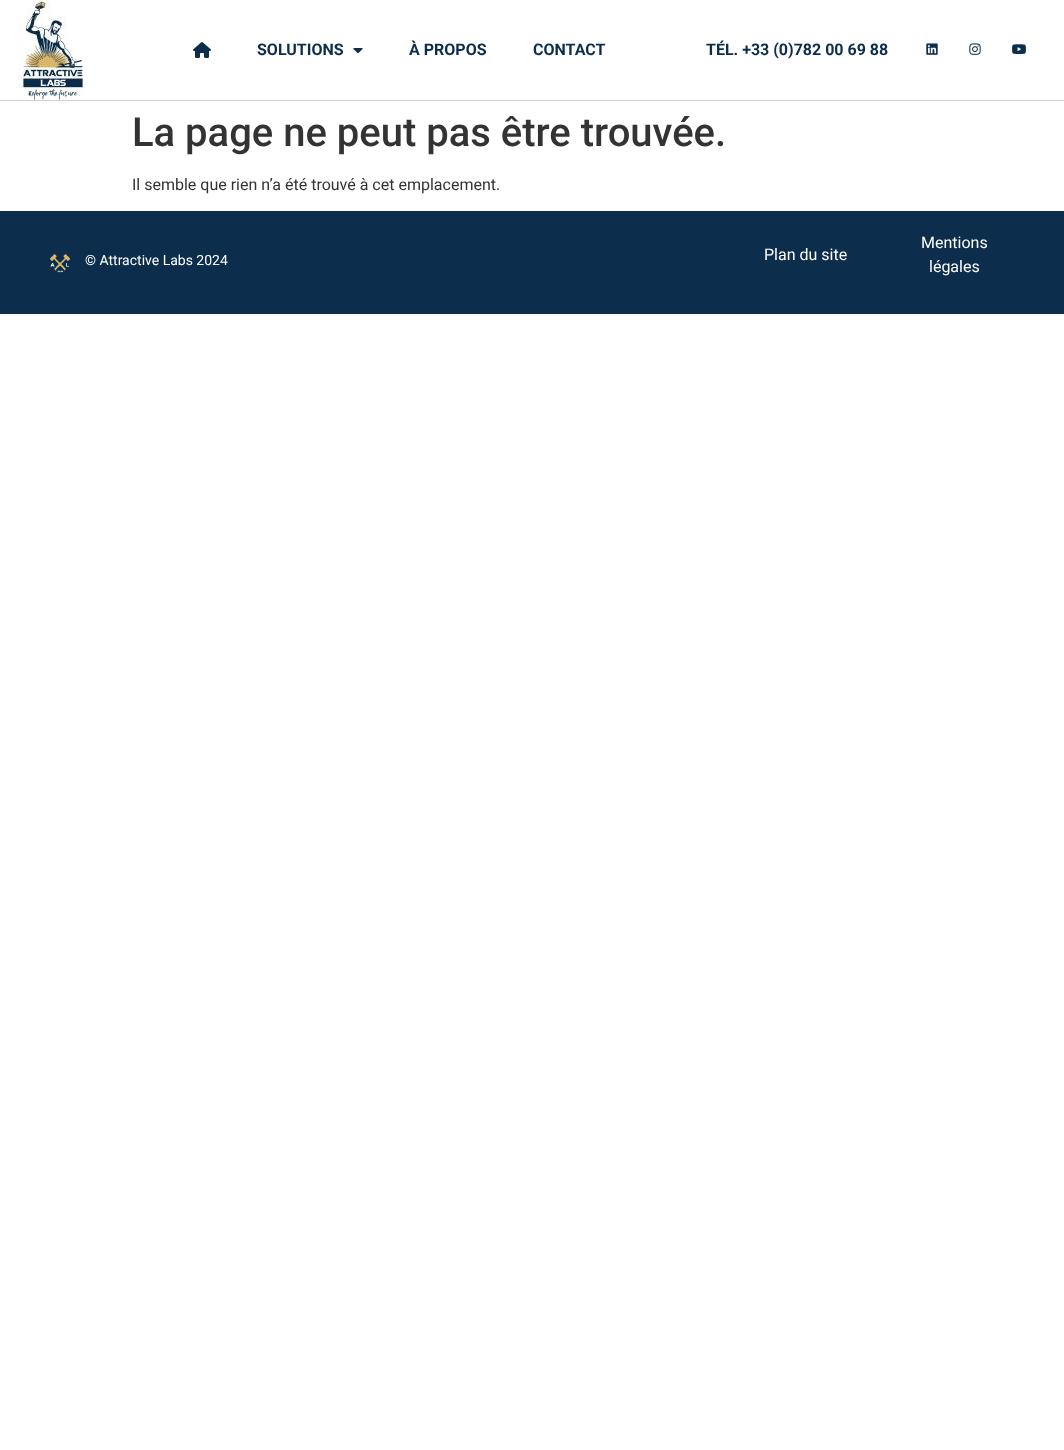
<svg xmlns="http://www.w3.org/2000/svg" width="1064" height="1450">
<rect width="100%" height="100%" fill="#fff"/>
<rect y="100" width="1064" height="1" fill="#d3d3d3"/>
<image x="19" y="0" width="65" height="100" href="media/1.png"/>
<image x="193" y="42" width="18" height="16" href="media/2.png"/>
<text x="257" y="55" style="font-family:Roboto;font-size:16px;font-weight:bold;fill:#0c2d4b">SOLUTIONS</text>
<image x="353" y="48" width="10" height="6" href="media/3.png"/>
<text x="409" y="55" style="font-family:Roboto;font-size:16px;font-weight:bold;fill:#0c2d4b">À PROPOS</text>
<text x="533" y="55" style="font-family:Roboto;font-size:16px;font-weight:bold;fill:#0c2d4b">CONTACT</text>
<text x="706" y="55" style="font-family:Roboto;font-size:16px;font-weight:bold;fill:#0c2d4b">TÉL. +33 (0)782 00 69 88</text>
<image x="926" y="43" width="12" height="12" href="media/4.png"/>
<image x="969" y="43" width="12" height="12" href="media/5.png"/>
<image x="1012" y="44" width="14" height="10" href="media/6.png"/>
<text x="132" y="146" style="font-family:Roboto;font-size:40px;font-weight:500;fill:#333">La page ne peut pas être trouvée.</text>
<text x="132" y="190" style="font-family:Roboto;font-size:16px;fill:#333">Il semble que rien n’a été trouvé à cet emplacement.</text>
<rect y="211" width="1064" height="103" fill="#0c2d4b"/>
<image x="50" y="254" width="20" height="19" href="media/7.png"/>
<text x="85" y="265" style="font-family:Roboto;font-size:14px;fill:#fff">© Attractive Labs 2024</text>
<text x="764" y="260" style="font-family:Roboto;font-size:16px;fill:#fff">Plan du site</text>
<text x="921" y="248" style="font-family:Roboto;font-size:16px;fill:#fff">Mentions</text>
<text x="929" y="272" style="font-family:Roboto;font-size:16px;fill:#fff">légales</text>
</svg>
